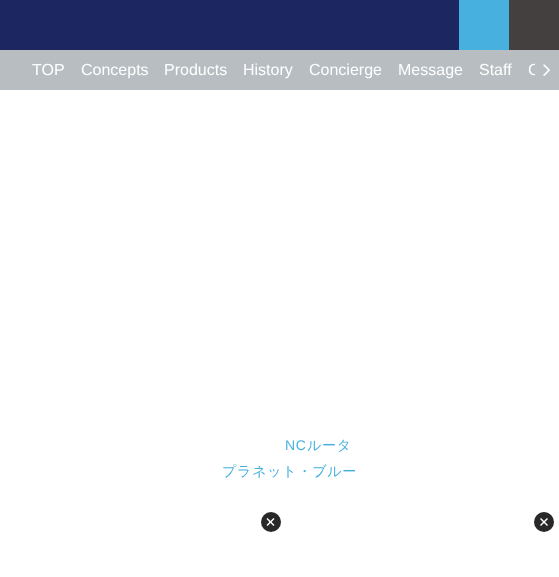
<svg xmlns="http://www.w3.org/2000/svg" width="559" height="577">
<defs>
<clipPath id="clip1"><rect x="24" y="50" width="511" height="40"/></clipPath>
</defs>
<rect width="100%" height="100%" fill="#fff"/>
<rect width="459" height="50" fill="#1c2660"/>
<rect x="459" width="50" height="50" fill="#47b0de"/>
<rect x="509" width="50" height="50" fill="#44403f"/>
<rect y="50" width="559" height="40" fill="#b7bdc1"/>
<text x="32" y="75" style="font-family:Liberation Sans;font-size:16px;fill:#fff">TOP</text>
<text x="81" y="75" style="font-family:Liberation Sans;font-size:16px;fill:#fff">Concepts</text>
<text x="164" y="75" style="font-family:Liberation Sans;font-size:16px;fill:#fff">Products</text>
<text x="243" y="75" style="font-family:Liberation Sans;font-size:16px;fill:#fff">History</text>
<text x="309" y="75" style="font-family:Liberation Sans;font-size:16px;fill:#fff">Concierge</text>
<text x="398" y="75" style="font-family:Liberation Sans;font-size:16px;fill:#fff">Message</text>
<text x="479" y="75" style="font-family:Liberation Sans;font-size:16px;fill:#fff">Staff</text>
<g clip-path="url(#clip1)">
<text x="528" y="75" style="font-family:Liberation Sans;font-size:16px;fill:#fff">C</text>
</g>
<image x="543" y="64" width="7" height="12" href="media/1.png"/>
<text x="285" y="450" style="font-family:Liberation Sans;font-size:14px;letter-spacing:0.75px;fill:#47b0de">NC</text>
<text x="307" y="450" style="font-family:WenQuanYi Zen Hei;font-size:14px;font-weight:500;letter-spacing:0.75px;fill:#47b0de">ルータ</text>
<text x="222" y="476" style="font-family:WenQuanYi Zen Hei;font-size:14px;font-weight:500;letter-spacing:0.75px;fill:#47b0de">プラネット・ブルー</text>
<circle cx="271" cy="522" r="10" fill="#282828"/>
<path d="M267.5 518l7 7l-1 1l-7-7z" fill="#fff"/>
<path d="M266.5 525l7-7l1 1l-7 7z" fill="#fff"/>
<circle cx="544" cy="522" r="10" fill="#282828"/>
<path d="M541 518l7 7l-1 1l-7-7z" fill="#fff"/>
<path d="M540 525l7-7l1 1l-7 7z" fill="#fff"/>
</svg>
